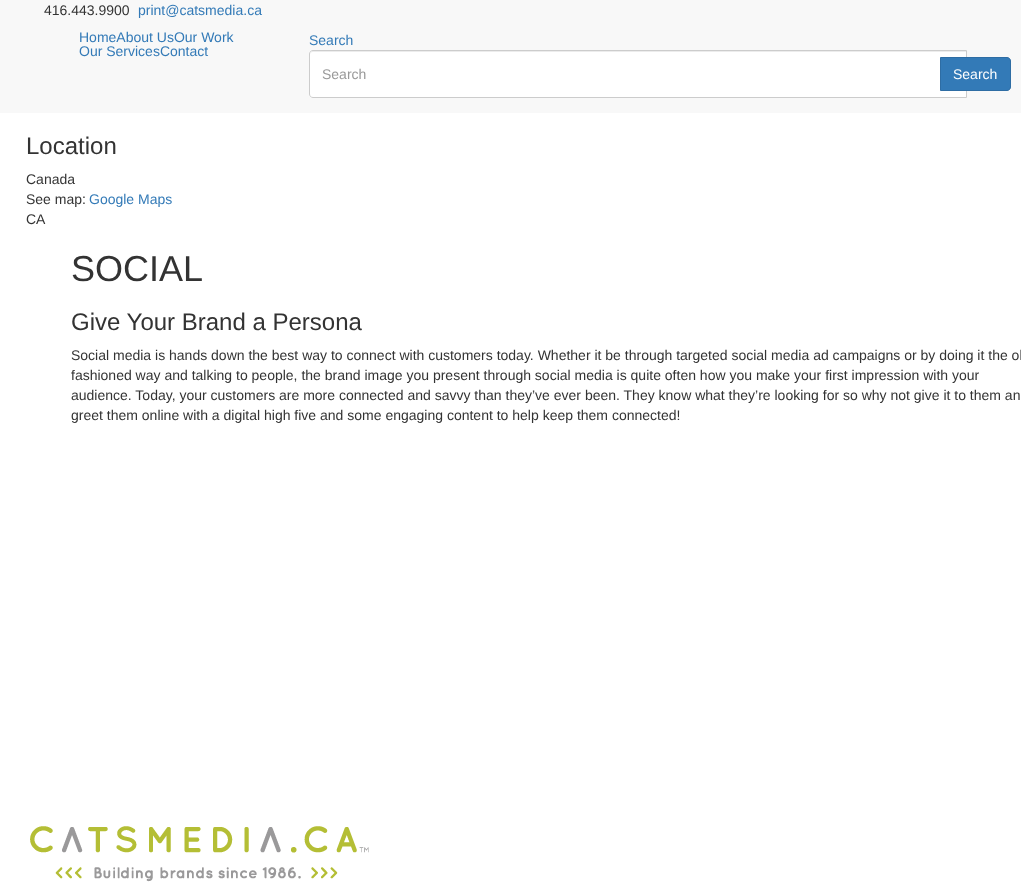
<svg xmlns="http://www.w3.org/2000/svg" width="1021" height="882">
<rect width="100%" height="100%" fill="#fff"/>
<rect width="1021" height="113" fill="#f8f8f8"/>
<text x="44" y="15" style="font-family:Liberation Sans;font-size:14px;fill:#333">416.443.9900</text>
<text x="138" y="15" style="font-family:Liberation Sans;font-size:14px;fill:#337ab7">print@catsmedia.ca</text>
<text x="79" y="42" style="font-family:Liberation Sans;font-size:14px;fill:#337ab7">HomeAbout UsOur Work</text>
<text x="79" y="56" style="font-family:Liberation Sans;font-size:14px;fill:#337ab7">Our ServicesContact</text>
<text x="309" y="45" style="font-family:Liberation Sans;font-size:14px;fill:#337ab7">Search</text>
<path d="M313 50h654v48h-654c-2 0-4-2-4-4v-40c0-2 2-4 4-4z" fill="#fff"/>
<path d="M313 52h653v-1h-653c-2 0-3 2-3 4c0-2 1-3 3-3z" fill="#ececec"/>
<path d="M313 50.5h653.5v47h-653.5c-2 0-3.5-1.5-3.5-3.5v-40c0-2 1.5-3.5 3.5-3.5z" fill="none" stroke="#ccc"/>
<text x="322" y="79" style="font-family:Liberation Sans;font-size:14px;fill:#999">Search</text>
<path d="M940.5 57.5h66.5c2 0 3.5 1.5 3.5 3.5v26c0 2-1.5 3.5-3.5 3.5h-66.5z" fill="#337ab7" stroke="#2e6da4"/>
<text x="953" y="79" style="font-family:Liberation Sans;font-size:14px;fill:#fff">Search</text>
<text x="26" y="154" style="font-family:Liberation Sans;font-size:24px;fill:#333">Location</text>
<text x="26" y="184" style="font-family:Liberation Sans;font-size:14px;fill:#333">Canada</text>
<text x="26" y="204" style="font-family:Liberation Sans;font-size:14px;fill:#333">See map:</text>
<text x="89" y="204" style="font-family:Liberation Sans;font-size:14px;fill:#337ab7">Google Maps</text>
<text x="26" y="224" style="font-family:Liberation Sans;font-size:14px;fill:#333">CA</text>
<text x="71" y="281" style="font-family:Liberation Sans;font-size:36px;fill:#333">SOCIAL</text>
<text x="71" y="330" style="font-family:Liberation Sans;font-size:24px;fill:#333">Give Your Brand a Persona</text>
<text x="71" y="360" style="font-family:Liberation Sans;font-size:14px;fill:#333">Social media is hands down the best way to connect with customers today. Whether it be through targeted social media ad campaigns or by doing it the ol</text>
<text x="71" y="380" style="font-family:Liberation Sans;font-size:14px;fill:#333">fashioned way and talking to people, the brand image you present through social media is quite often how you make your first impression with your</text>
<text x="71" y="400" style="font-family:Liberation Sans;font-size:14px;fill:#333">audience. Today, your customers are more connected and savvy than they’ve ever been. They know what they’re looking for so why not give it to them an</text>
<text x="71" y="420" style="font-family:Liberation Sans;font-size:14px;fill:#333">greet them online with a digital high five and some engaging content to help keep them connected!</text>
<image x="30" y="826" width="339" height="56" href="media/1.png"/>
</svg>
